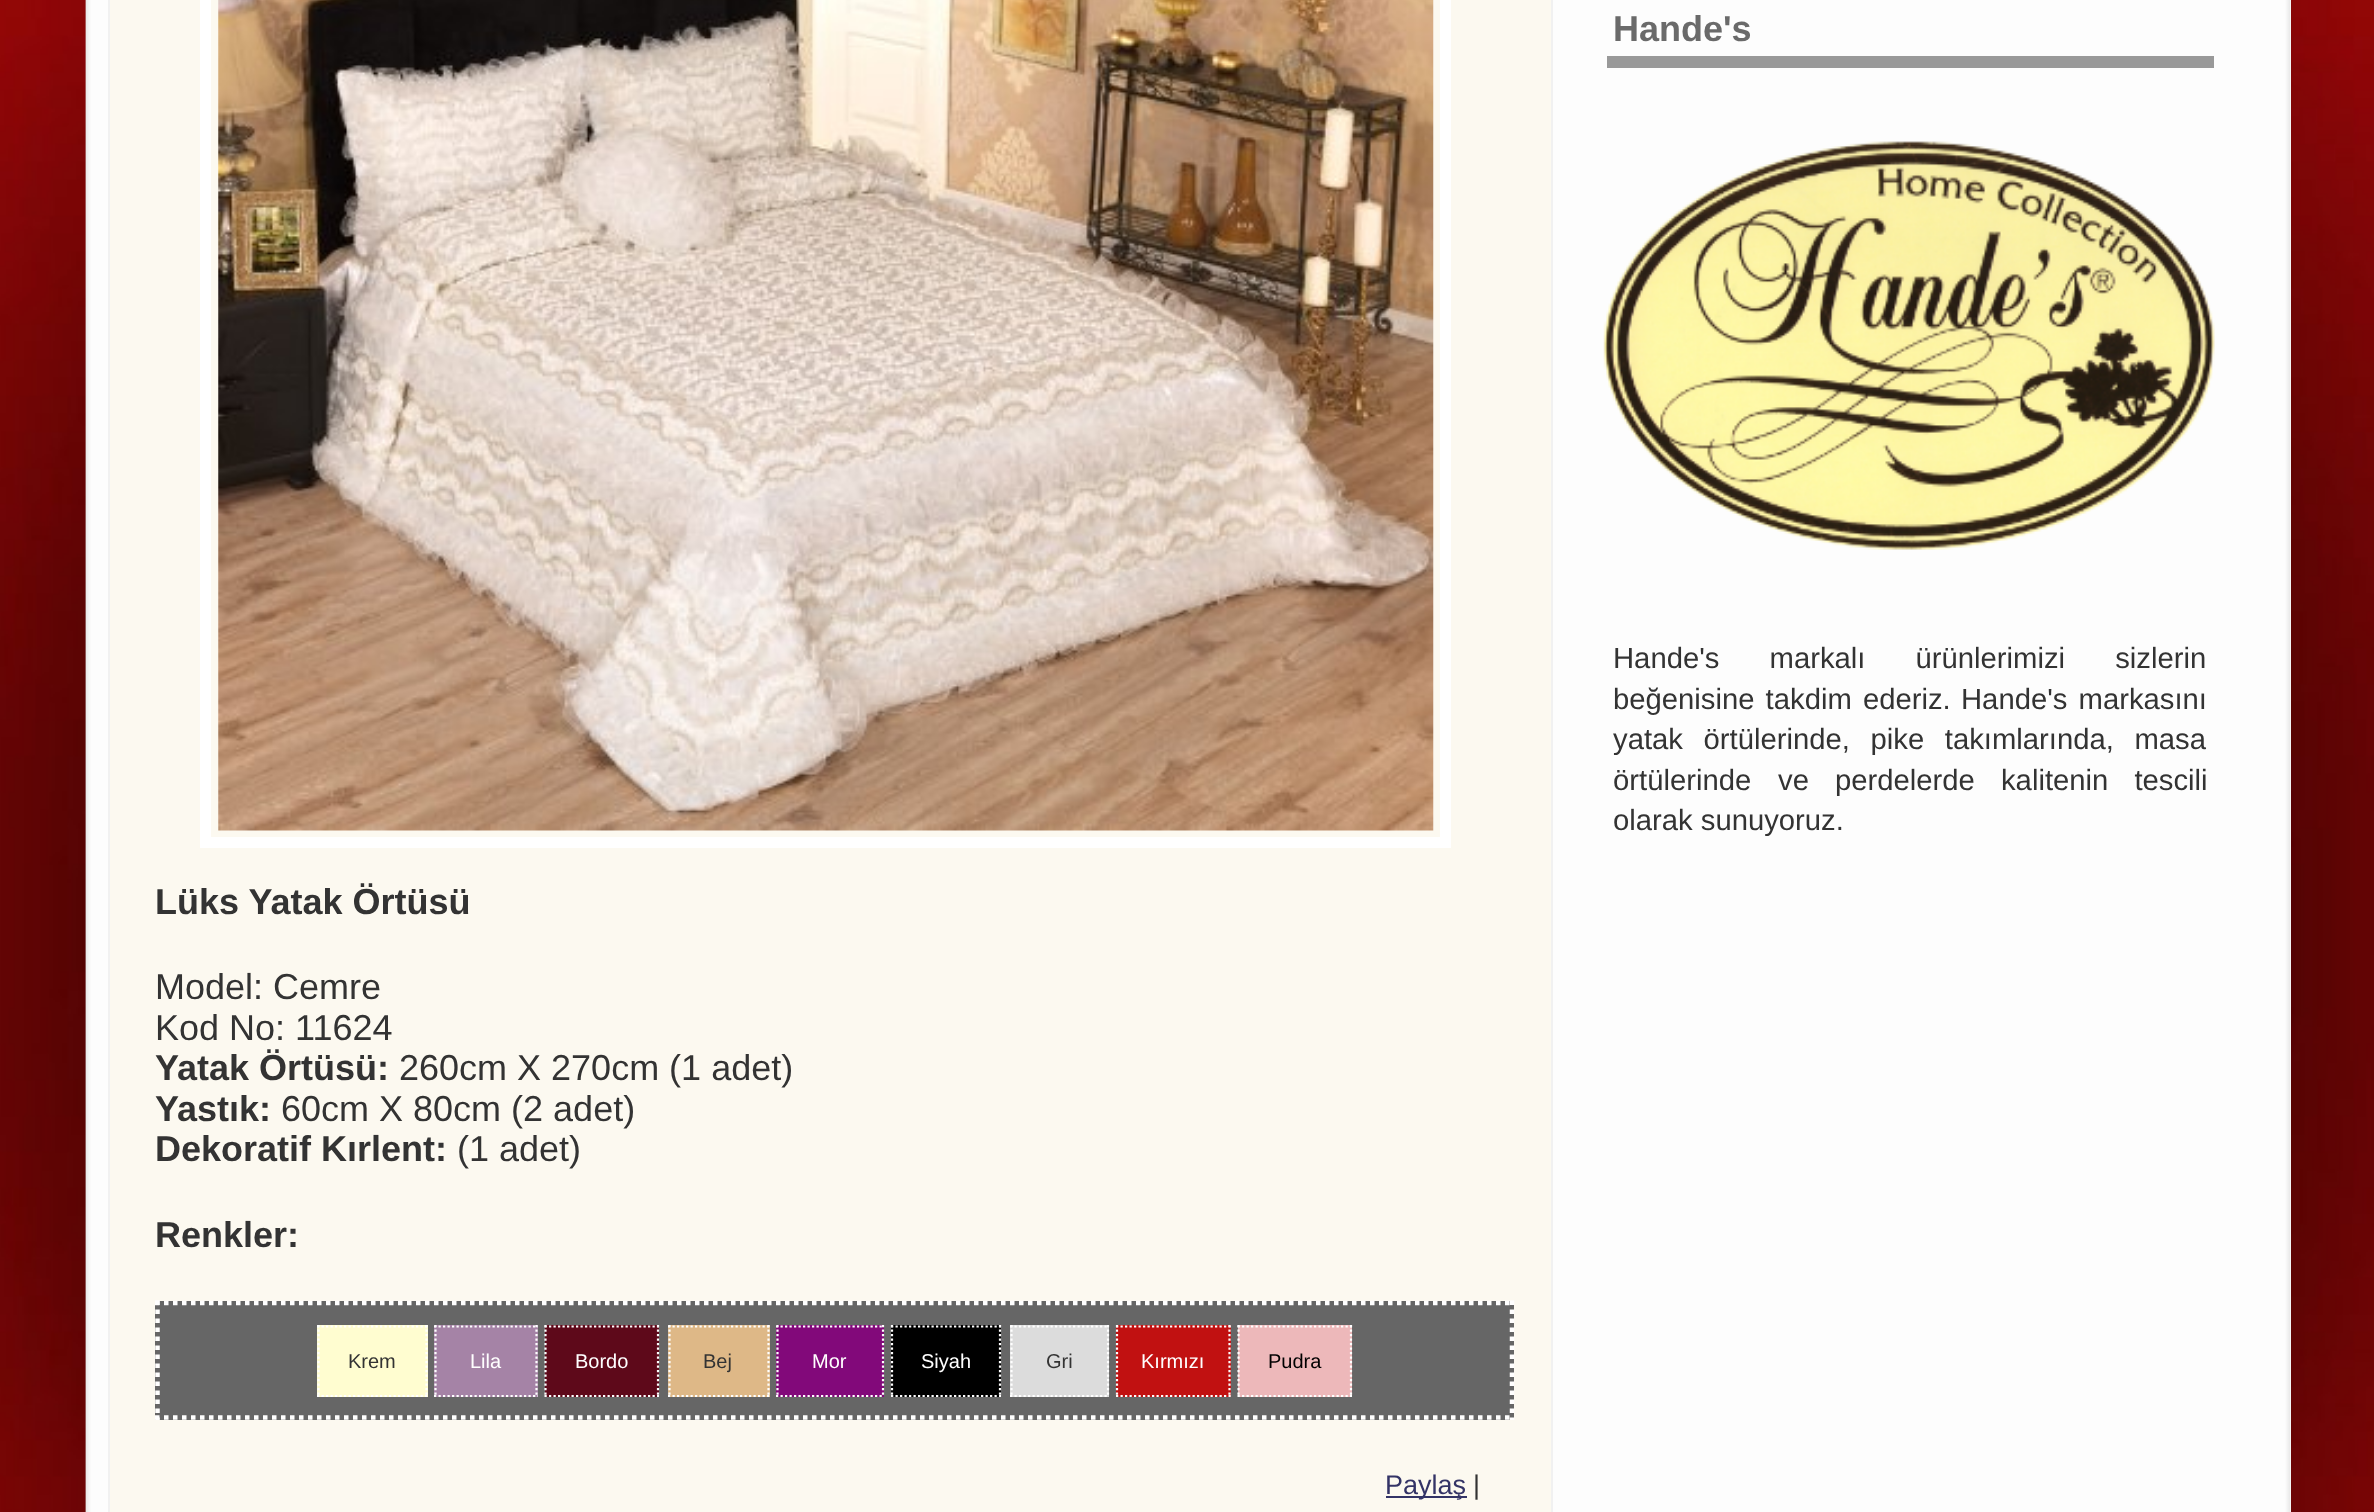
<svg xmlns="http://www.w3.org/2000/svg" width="2374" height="1512">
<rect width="100%" height="100%" fill="#fff"/>
<image x="0" y="0" width="2374" height="1512" href="media/1.png"/>
<rect x="86" width="2205" height="1512" fill="#fff"/>
<image x="85" y="0" width="2206" height="1512" href="media/2.png"/>
<rect x="1607" y="56" width="607" height="12" fill="#999"/>
<text x="1613" y="41" style="font-family:Liberation Sans;font-size:36px;font-weight:bold;fill:#6a6a6a">Hande's</text>
<image x="1603" y="141" width="612" height="409" href="media/3.png"/>
<text x="1613" y="668" word-spacing="42" style="font-family:Liberation Sans;font-size:29.25px;fill:#333">Hande's markalı ürünlerimizi sizlerin</text>
<text x="1613" y="709" word-spacing="3" style="font-family:Liberation Sans;font-size:29.25px;fill:#333">beğenisine takdim ederiz.</text>
<text x="1961" y="709" word-spacing="3" style="font-family:Liberation Sans;font-size:29.25px;fill:#333">Hande's markasını</text>
<text x="1613" y="749" word-spacing="12.5" style="font-family:Liberation Sans;font-size:29.25px;fill:#333">yatak örtülerinde, pike takımlarında, masa</text>
<text x="1613" y="790" style="font-family:Liberation Sans;font-size:29.25px;fill:#333">örtülerinde</text>
<text x="1778" y="790" word-spacing="18" style="font-family:Liberation Sans;font-size:29.25px;fill:#333">ve perdelerde kalitenin tescili</text>
<text x="1613" y="830" style="font-family:Liberation Sans;font-size:29.25px;fill:#333">olarak sunuyoruz.</text>
<rect x="109" y="-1" width="1443" height="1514" fill="#fcf9f0" stroke="#f1f1f1" stroke-width="2"/>
<rect x="205.5" y="-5.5" width="1240" height="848" fill="none" stroke="#fff" stroke-width="11"/>
<image x="218" y="0" width="1216" height="831" href="media/4.png"/>
<text x="155" y="914" style="font-family:Liberation Sans;font-size:36px;font-weight:bold;fill:#333">Lüks Yatak Örtüsü</text>
<text x="155" y="999" style="font-family:Liberation Sans;font-size:36px;fill:#333">Model: Cemre</text>
<text x="155" y="1040" style="font-family:Liberation Sans;font-size:36px;fill:#333">Kod No: 11624</text>
<text x="155" y="1080" style="font-family:Liberation Sans;font-size:36px;font-weight:bold;fill:#333">Yatak Örtüsü:</text>
<text x="399" y="1080" style="font-family:Liberation Sans;font-size:36px;fill:#333">260cm X 270cm (1 adet)</text>
<text x="155" y="1121" style="font-family:Liberation Sans;font-size:36px;font-weight:bold;fill:#333">Yastık:</text>
<text x="281" y="1121" style="font-family:Liberation Sans;font-size:36px;fill:#333">60cm X 80cm (2 adet)</text>
<text x="155" y="1161" style="font-family:Liberation Sans;font-size:36px;font-weight:bold;fill:#333">Dekoratif Kırlent:</text>
<text x="457" y="1161" style="font-family:Liberation Sans;font-size:36px;fill:#333">(1 adet)</text>
<text x="155" y="1247" style="font-family:Liberation Sans;font-size:36px;font-weight:bold;fill:#333">Renkler:</text>
<rect x="155" y="1301" width="1359" height="119" fill="#666"/>
<path d="M155 1303h1359" fill="none" stroke="#fff" stroke-width="4.5" stroke-dasharray="4.5 4.5"/>
<path d="M1512 1300.5v119.5" fill="none" stroke="#fff" stroke-width="4.5" stroke-dasharray="4.5 4.5"/>
<path d="M155 1417.5h1359" fill="none" stroke="#fff" stroke-width="4.5" stroke-dasharray="4.5 4.5"/>
<path d="M157.5 1300.5v119.5" fill="none" stroke="#fff" stroke-width="4.5" stroke-dasharray="4.5 4.5"/>
<rect x="317" y="1325" width="111" height="72" fill="#fffdd0"/>
<text x="348" y="1368" style="font-family:Liberation Sans;font-size:20px;fill:#333">Krem</text>
<path d="M317 1326.5h110.5" fill="none" stroke="#fff" stroke-width="2.2" stroke-dasharray="2.25 2.25"/>
<path d="M426.5 1325v72" fill="none" stroke="#fff" stroke-width="2.2" stroke-dasharray="2.25 2.25"/>
<path d="M317 1396h110.5" fill="none" stroke="#fff" stroke-width="2.2" stroke-dasharray="2.25 2.25"/>
<path d="M318.5 1325v72" fill="none" stroke="#fff" stroke-width="2.2" stroke-dasharray="2.25 2.25"/>
<rect x="434" y="1325" width="104" height="72" fill="#a583a6"/>
<text x="470" y="1368" style="font-family:Liberation Sans;font-size:20px;fill:#fff">Lila</text>
<path d="M434 1326.5h104" fill="none" stroke="#fff" stroke-width="2.2" stroke-dasharray="2.25 2.25"/>
<path d="M536.5 1325v72" fill="none" stroke="#fff" stroke-width="2.2" stroke-dasharray="2.25 2.25"/>
<path d="M434 1396h104" fill="none" stroke="#fff" stroke-width="2.2" stroke-dasharray="2.25 2.25"/>
<path d="M435.5 1325v72" fill="none" stroke="#fff" stroke-width="2.2" stroke-dasharray="2.25 2.25"/>
<rect x="545" y="1325" width="114" height="72" fill="#5e091a"/>
<text x="575" y="1368" style="font-family:Liberation Sans;font-size:20px;fill:#fff">Bordo</text>
<path d="M544.5 1326.5h114.5" fill="none" stroke="#fff" stroke-width="2.2" stroke-dasharray="2.25 2.25"/>
<path d="M658 1325v72" fill="none" stroke="#fff" stroke-width="2.2" stroke-dasharray="2.25 2.25"/>
<path d="M544.5 1396h114.5" fill="none" stroke="#fff" stroke-width="2.2" stroke-dasharray="2.25 2.25"/>
<path d="M545.5 1325v72" fill="none" stroke="#fff" stroke-width="2.2" stroke-dasharray="2.25 2.25"/>
<rect x="668" y="1325" width="102" height="72" fill="#deb887"/>
<text x="703" y="1368" style="font-family:Liberation Sans;font-size:20px;fill:#333">Bej</text>
<path d="M668 1326.5h101.5" fill="none" stroke="#fff" stroke-width="2.2" stroke-dasharray="2.25 2.25"/>
<path d="M768.5 1325v72" fill="none" stroke="#fff" stroke-width="2.2" stroke-dasharray="2.25 2.25"/>
<path d="M668 1396h101.5" fill="none" stroke="#fff" stroke-width="2.2" stroke-dasharray="2.25 2.25"/>
<path d="M669.5 1325v72" fill="none" stroke="#fff" stroke-width="2.2" stroke-dasharray="2.25 2.25"/>
<rect x="776" y="1325" width="108" height="72" fill="#82097a"/>
<text x="812" y="1368" style="font-family:Liberation Sans;font-size:20px;fill:#fff">Mor</text>
<path d="M776 1326.5h108" fill="none" stroke="#fff" stroke-width="2.2" stroke-dasharray="2.25 2.25"/>
<path d="M883 1325v72" fill="none" stroke="#fff" stroke-width="2.2" stroke-dasharray="2.25 2.25"/>
<path d="M776 1396h108" fill="none" stroke="#fff" stroke-width="2.2" stroke-dasharray="2.25 2.25"/>
<path d="M777.5 1325v72" fill="none" stroke="#fff" stroke-width="2.2" stroke-dasharray="2.25 2.25"/>
<rect x="891" y="1325" width="110" height="72" fill="#000"/>
<text x="921" y="1368" style="font-family:Liberation Sans;font-size:20px;fill:#fff">Siyah</text>
<path d="M891 1326.5h110" fill="none" stroke="#fff" stroke-width="2.2" stroke-dasharray="2.25 2.25"/>
<path d="M1000 1325v72" fill="none" stroke="#fff" stroke-width="2.2" stroke-dasharray="2.25 2.25"/>
<path d="M891 1396h110" fill="none" stroke="#fff" stroke-width="2.2" stroke-dasharray="2.25 2.25"/>
<path d="M892 1325v72" fill="none" stroke="#fff" stroke-width="2.2" stroke-dasharray="2.25 2.25"/>
<rect x="1010" y="1325" width="99" height="72" fill="#dcdcdc"/>
<text x="1046" y="1368" style="font-family:Liberation Sans;font-size:20px;fill:#333">Gri</text>
<path d="M1010 1326.5h99" fill="none" stroke="#fff" stroke-width="2.2" stroke-dasharray="2.25 2.25"/>
<path d="M1108 1325v72" fill="none" stroke="#fff" stroke-width="2.2" stroke-dasharray="2.25 2.25"/>
<path d="M1010 1396h99" fill="none" stroke="#fff" stroke-width="2.2" stroke-dasharray="2.25 2.25"/>
<path d="M1011.5 1325v72" fill="none" stroke="#fff" stroke-width="2.2" stroke-dasharray="2.25 2.25"/>
<rect x="1116" y="1325" width="115" height="72" fill="#c11111"/>
<text x="1141" y="1368" style="font-family:Liberation Sans;font-size:20px;fill:#fff">Kırmızı</text>
<path d="M1116 1326.5h115" fill="none" stroke="#fff" stroke-width="2.2" stroke-dasharray="2.25 2.25"/>
<path d="M1229.5 1325v72" fill="none" stroke="#fff" stroke-width="2.2" stroke-dasharray="2.25 2.25"/>
<path d="M1116 1396h115" fill="none" stroke="#fff" stroke-width="2.2" stroke-dasharray="2.25 2.25"/>
<path d="M1117 1325v72" fill="none" stroke="#fff" stroke-width="2.2" stroke-dasharray="2.25 2.25"/>
<rect x="1238" y="1325" width="114" height="72" fill="#edb8ba"/>
<text x="1268" y="1368" style="font-family:Liberation Sans;font-size:20px;fill:#000">Pudra</text>
<path d="M1237.5 1326.5h114.5" fill="none" stroke="#fff" stroke-width="2.2" stroke-dasharray="2.25 2.25"/>
<path d="M1351 1325v72" fill="none" stroke="#fff" stroke-width="2.2" stroke-dasharray="2.25 2.25"/>
<path d="M1237.5 1396h114.5" fill="none" stroke="#fff" stroke-width="2.2" stroke-dasharray="2.25 2.25"/>
<path d="M1238.5 1325v72" fill="none" stroke="#fff" stroke-width="2.2" stroke-dasharray="2.25 2.25"/>
<rect x="1386" y="1496" width="81" height="2" fill="#336"/>
<text x="1385" y="1494" style="font-family:Liberation Sans;font-size:27px;fill:#336">Paylaş</text>
<text x="1473" y="1494" style="font-family:Liberation Sans;font-size:27px;fill:#333">|</text>
</svg>
